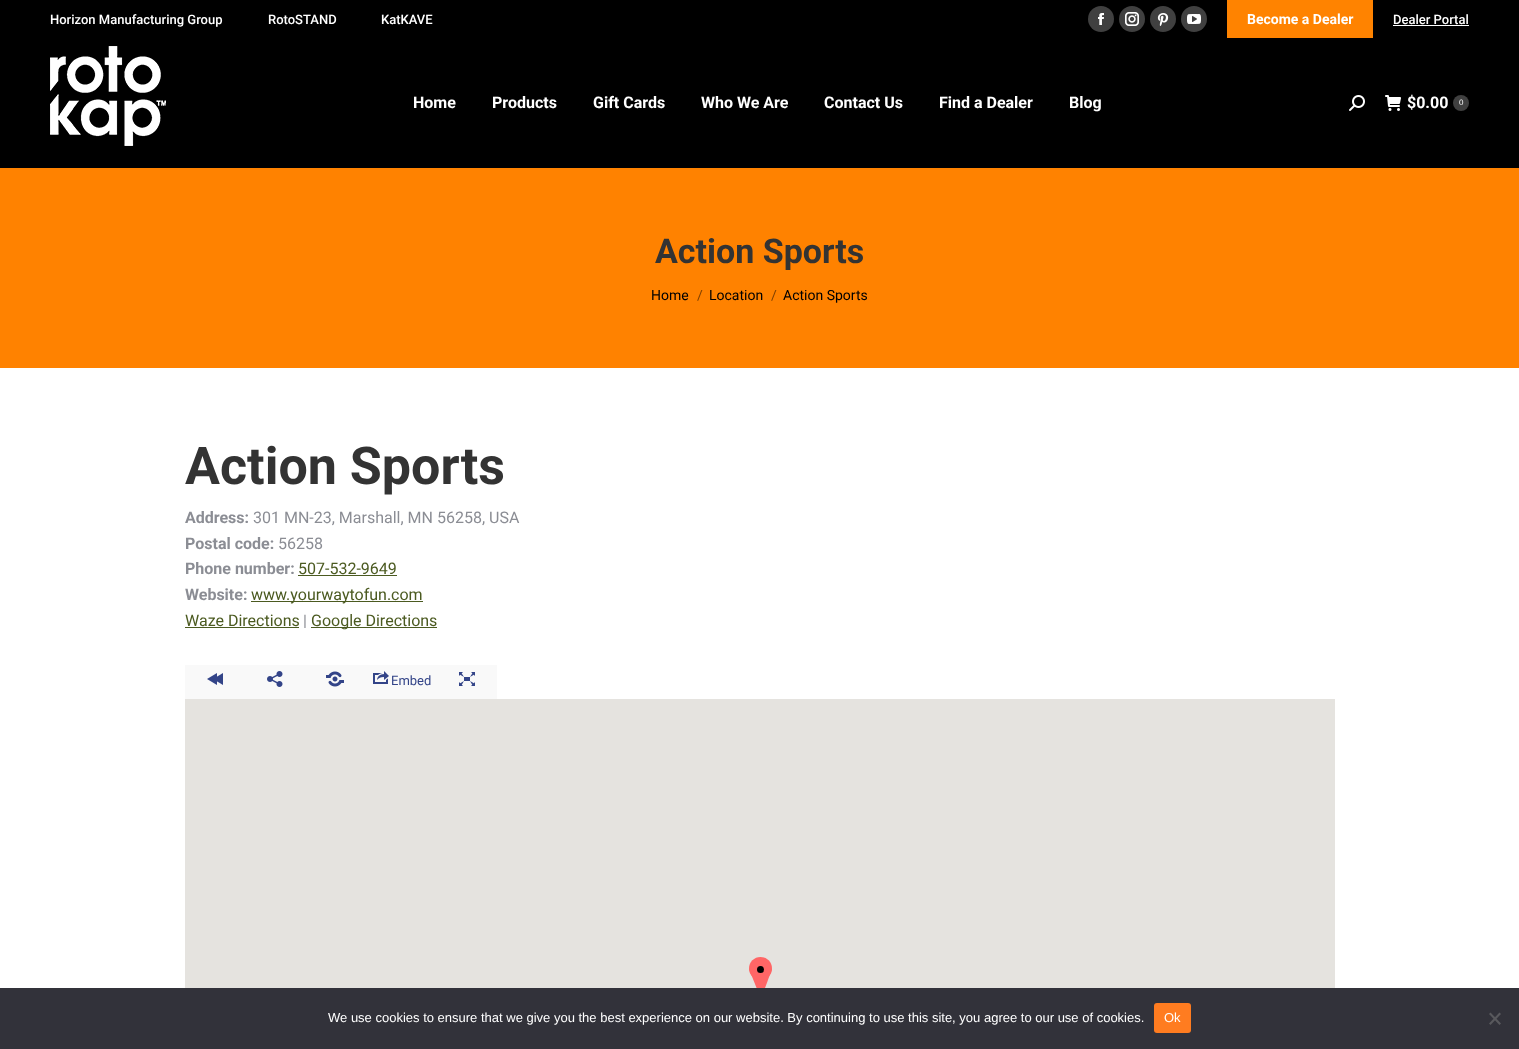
<svg xmlns="http://www.w3.org/2000/svg" width="1519" height="1049">
<rect width="100%" height="100%" fill="#fff"/>
<rect width="1519" height="168" fill="#000"/>
<text x="50" y="24" style="font-family:Roboto;font-size:13px;font-weight:500;fill:#fff">Horizon Manufacturing Group</text>
<text x="268" y="24" style="font-family:Roboto;font-size:13px;font-weight:500;fill:#fff">RotoSTAND</text>
<text x="381" y="24" style="font-family:Roboto;font-size:13px;font-weight:500;fill:#fff">KatKAVE</text>
<circle cx="1101" cy="19" r="13" fill="#404040"/>
<image x="1098" y="13" width="6" height="12" href="media/1.png"/>
<circle cx="1132" cy="19" r="13" fill="#404040"/>
<image x="1125" y="12" width="14" height="14" href="media/2.png"/>
<circle cx="1163" cy="19" r="13" fill="#404040"/>
<image x="1157" y="13" width="12" height="13" href="media/3.png"/>
<circle cx="1194" cy="19" r="13" fill="#404040"/>
<image x="1187" y="14" width="14" height="10" href="media/4.png"/>
<rect x="1227" width="146" height="38" fill="#ff8300"/>
<text x="1247" y="24" style="font-family:Roboto;font-size:14px;font-weight:bold;fill:#fff">Become a Dealer</text>
<text x="1393" y="24" style="font-family:Roboto;font-size:13px;font-weight:500;fill:#fff">Dealer Portal</text>
<rect x="1393" y="25" width="76" height="1" fill="#fff"/>
<image x="50" y="46" width="116" height="100" href="media/5.png"/>
<text x="413" y="108" style="font-family:Roboto;font-size:16px;font-weight:bold;fill:#fff">Home</text>
<text x="492" y="108" style="font-family:Roboto;font-size:16px;font-weight:bold;fill:#fff">Products</text>
<text x="593" y="108" style="font-family:Roboto;font-size:16px;font-weight:bold;fill:#fff">Gift Cards</text>
<text x="701" y="108" style="font-family:Roboto;font-size:16px;font-weight:bold;fill:#fff">Who We Are</text>
<text x="824" y="108" style="font-family:Roboto;font-size:16px;font-weight:bold;fill:#fff">Contact Us</text>
<text x="939" y="108" style="font-family:Roboto;font-size:16px;font-weight:bold;fill:#fff">Find a Dealer</text>
<text x="1069" y="108" style="font-family:Roboto;font-size:16px;font-weight:bold;fill:#fff">Blog</text>
<image x="1349" y="95" width="16" height="16" href="media/6.png"/>
<image x="1385" y="95" width="16" height="16" href="media/7.png"/>
<text x="1407" y="108" style="font-family:Roboto;font-size:16px;font-weight:bold;fill:#fff">$0.00</text>
<circle cx="1461" cy="103" r="8" fill="#404040"/>
<text x="1459" y="105" style="font-family:Liberation Sans;font-size:8px;fill:#fff">0</text>
<rect y="168" width="1519" height="200" fill="#ff8200"/>
<text x="655" y="263" style="font-family:Roboto;font-size:34px;font-weight:bold;fill:#333">Action Sports</text>
<text x="651" y="300" style="font-family:Roboto;font-size:14px;fill:#000">Home</text>
<text x="697" y="300" style="font-family:Roboto;font-size:14px;fill:#804100">/</text>
<text x="709" y="300" style="font-family:Roboto;font-size:14px;fill:#000">Location</text>
<text x="771" y="300" style="font-family:Roboto;font-size:14px;fill:#804100">/</text>
<text x="783" y="300" style="font-family:Roboto;font-size:14px;fill:#000">Action Sports</text>
<text x="185" y="484" style="font-family:Roboto;font-size:52px;font-weight:bold;fill:#333">Action Sports</text>
<text x="185" y="523" style="font-family:Roboto;font-size:16px;font-weight:bold;fill:#8b8d94">Address:</text>
<text x="253" y="523" style="font-family:Roboto;font-size:16px;fill:#8b8d94">301 MN-23, Marshall, MN 56258, USA</text>
<text x="185" y="549" style="font-family:Roboto;font-size:16px;font-weight:bold;fill:#8b8d94">Postal code:</text>
<text x="278" y="549" style="font-family:Roboto;font-size:16px;fill:#8b8d94">56258</text>
<text x="185" y="574" style="font-family:Roboto;font-size:16px;font-weight:bold;fill:#8b8d94">Phone number:</text>
<text x="298" y="574" style="font-family:Roboto;font-size:16px;fill:#4b5a20">507-532-9649</text>
<rect x="298" y="575" width="99" height="1" fill="#4b5a20"/>
<text x="185" y="600" style="font-family:Roboto;font-size:16px;font-weight:bold;fill:#8b8d94">Website:</text>
<rect x="251" y="601" width="172" height="1" fill="#4b5a20"/>
<text x="251" y="600" style="font-family:Roboto;font-size:16px;fill:#4b5a20">www.yourwaytofun.com</text>
<text x="185" y="626" style="font-family:Roboto;font-size:16px;fill:#4b5a20">Waze Directions</text>
<rect x="185" y="627" width="114" height="1" fill="#4b5a20"/>
<text x="303" y="626" style="font-family:Roboto;font-size:16px;fill:#8b8d94">|</text>
<rect x="311" y="627" width="126" height="1" fill="#4b5a20"/>
<text x="311" y="626" style="font-family:Roboto;font-size:16px;fill:#4b5a20">Google Directions</text>
<rect x="185" y="665" width="312" height="34" fill="#f9f9f9"/>
<image x="207" y="673" width="16" height="12" href="media/8.png"/>
<image x="267" y="671" width="16" height="16" href="media/9.png"/>
<image x="326" y="671" width="18" height="16" href="media/10.png"/>
<image x="373" y="671" width="16" height="13" href="media/11.png"/>
<text x="391" y="685" style="font-family:Roboto;font-size:13px;fill:#348">Embed</text>
<image x="459" y="672" width="16" height="14" href="media/12.png"/>
<rect x="185" y="699" width="1150" height="289" fill="#e5e3df"/>
<circle cx="760.5" cy="968.5" r="11.5" fill="#f66"/>
<path d="M749 969h23l-11 30z" fill="#f66"/>
<circle cx="760.5" cy="969.5" r="3.5" fill="#000"/>
<rect y="988" width="1519" height="61" fill="#32323a"/>
<text x="328" y="1022" style="font-family:Liberation Sans;font-size:13px;fill:#fff">We use cookies to ensure that we give you the best experience on our website. By continuing to use this site, you agree to our use of cookies.</text>
<rect x="1154" y="1003" width="37" height="30" rx="3" fill="#ff7c20"/>
<text x="1164" y="1022" style="font-family:Liberation Sans;font-size:13px;fill:#fff">Ok</text>
<path d="M1499.5 1012.5l1.5 1.5l-10.5 11l-1.5-1.5z" fill="#59595d"/>
<path d="M1489 1014l1.5-1.5l10.5 11l-1.5 1.5z" fill="#59595d"/>
</svg>
